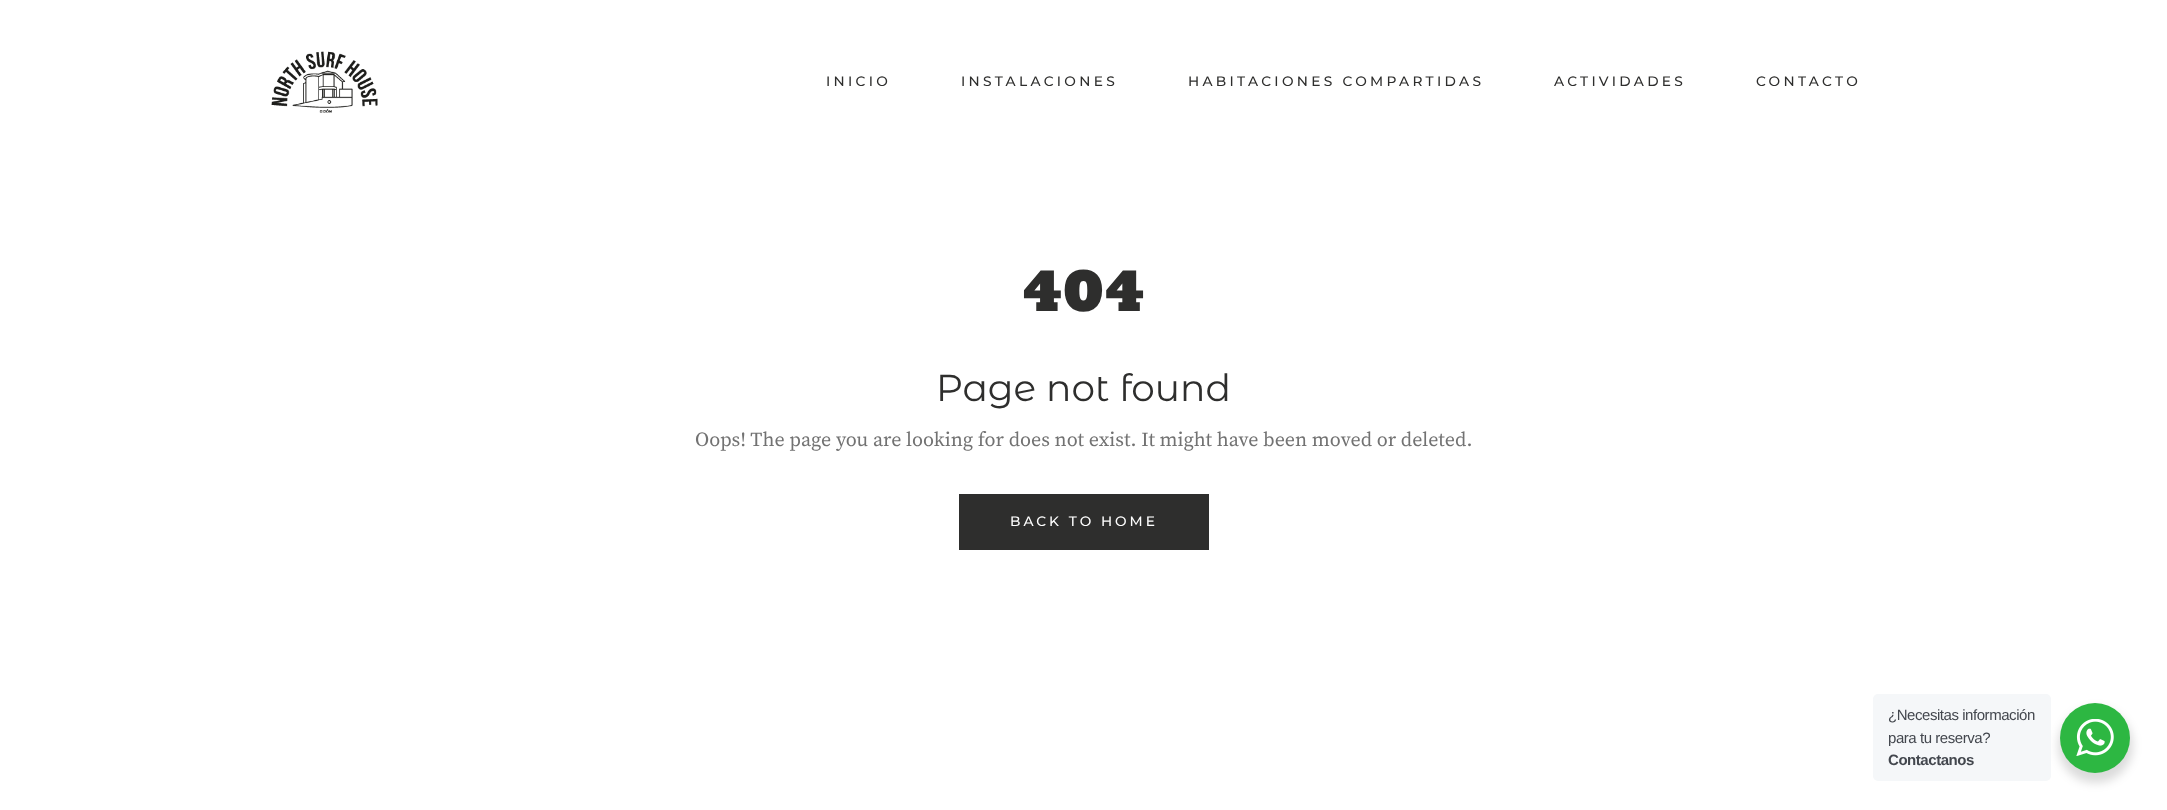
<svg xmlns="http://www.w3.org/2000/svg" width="2167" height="810">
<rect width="100%" height="100%" fill="#fff"/>
<image x="271" y="51" width="107" height="62" href="media/1.png"/>
<text x="826" y="86" style="font-family:Montserrat;font-size:13.75px;font-weight:500;letter-spacing:3.3px;fill:#2e2e2d">INICIO</text>
<text x="961" y="86" style="font-family:Montserrat;font-size:13.75px;font-weight:500;letter-spacing:3.3px;fill:#2e2e2d">INSTALACIONES</text>
<text x="1188" y="86" style="font-family:Montserrat;font-size:13.75px;font-weight:500;letter-spacing:3.3px;fill:#2e2e2d">HABITACIONES COMPARTIDAS</text>
<text x="1554" y="86" style="font-family:Montserrat;font-size:13.75px;font-weight:500;letter-spacing:3.3px;fill:#2e2e2d">ACTIVIDADES</text>
<text x="1756" y="86" style="font-family:Montserrat;font-size:13.75px;font-weight:500;letter-spacing:3.3px;fill:#2e2e2d">CONTACTO</text>
<text x="1022" y="311" style="font-family:Moul;font-size:62px;fill:#2e2e2d">404</text>
<text x="936" y="401" style="font-family:Montserrat Alternates;font-size:37.5px;fill:#2e2e2d">Page not found</text>
<text x="695" y="446" style="font-family:Source Serif Pro;font-size:20px;fill:#727272">Oops! The page you are looking for does not exist. It might have been moved or deleted.</text>
<rect x="959" y="494" width="250" height="56" fill="#2e2e2d"/>
<text x="1010" y="526" style="font-family:Montserrat;font-size:13.75px;font-weight:500;letter-spacing:3px;fill:#fff">BACK TO HOME</text>
<rect x="2058" y="708" width="75" height="75" rx="37.5" fill="#00000024" filter="blur(5px)"/>
<rect x="1873" y="694" width="178" height="87" rx="5" fill="#f5f7f9"/>
<text x="1888" y="720" style="font-family:Liberation Sans;font-size:15px;letter-spacing:-0.45px;fill:#43474e">¿Necesitas información</text>
<text x="1888" y="743" style="font-family:Liberation Sans;font-size:15px;letter-spacing:-0.45px;fill:#43474e">para tu reserva?</text>
<text x="1888" y="765" style="font-family:Liberation Sans;font-size:15px;font-weight:bold;letter-spacing:-0.45px;fill:#43474e">Contactanos</text>
<circle cx="2095" cy="738" r="35" fill="#2db742"/>
<image x="2076" y="719" width="38" height="37" href="media/2.png"/>
</svg>
